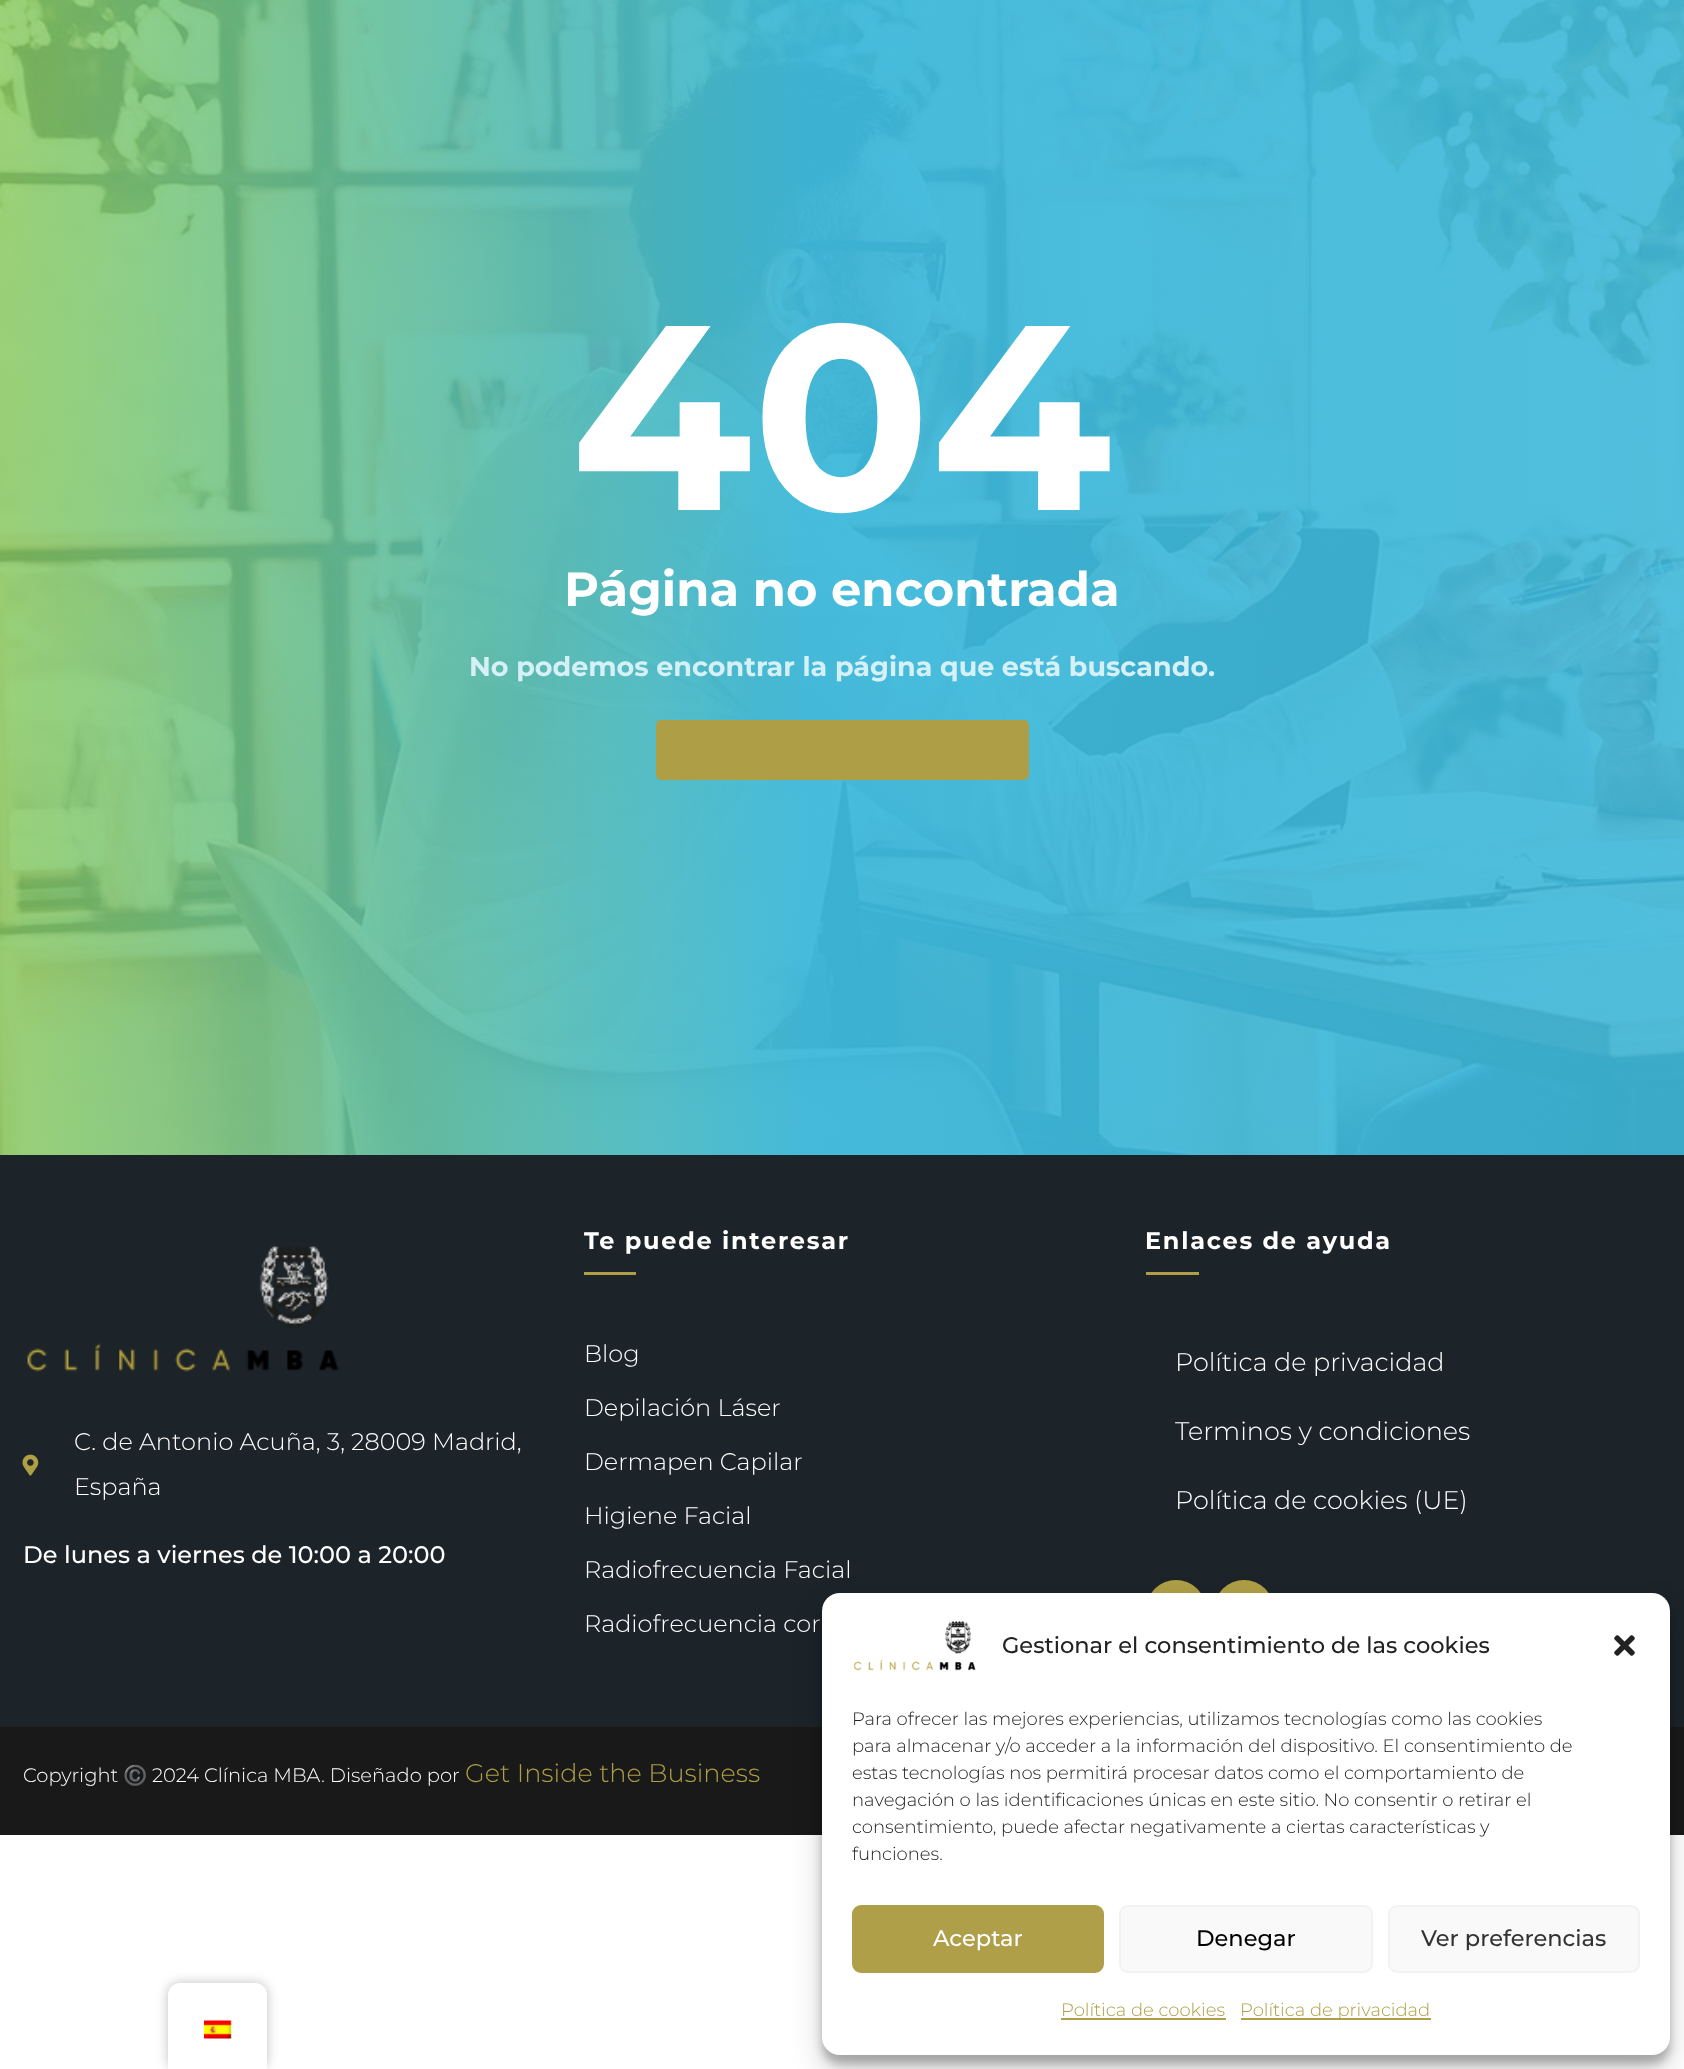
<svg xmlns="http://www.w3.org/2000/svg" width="1684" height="2069">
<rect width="100%" height="100%" fill="#fff"/>
<image x="0" y="0" width="1684" height="1155" href="media/1.png"/>
<text x="571" y="510" style="font-family:Montserrat;font-size:263px;font-weight:bold;fill:#fff">404</text>
<text x="564" y="606" style="font-family:Montserrat;font-size:48px;font-weight:bold;fill:#fff">Página no encontrada</text>
<text x="469" y="676" style="font-family:Montserrat;font-size:27px;font-weight:bold;fill:#d6f0f7">No podemos encontrar la página que está buscando.</text>
<rect x="656" y="720" width="373" height="60" rx="5" fill="#ae9e45"/>
<rect y="1155" width="1684" height="572" fill="#1c242a"/>
<image x="27" y="1246" width="312" height="126" href="media/2.png"/>
<image x="22" y="1454" width="17" height="22" href="media/3.png"/>
<text x="74" y="1450" style="font-family:Montserrat;font-size:24px;font-weight:300;fill:#fff">C. de Antonio Acuña, 3, 28009 Madrid,</text>
<text x="74" y="1495" style="font-family:Montserrat;font-size:24px;font-weight:300;fill:#fff">España</text>
<text x="23" y="1563" style="font-family:Montserrat;font-size:24px;font-weight:500;fill:#fff">De lunes a viernes de 10:00 a 20:00</text>
<text x="584" y="1249" style="font-family:Montserrat;font-size:24px;font-weight:bold;letter-spacing:1.75px;fill:#fff">Te puede interesar</text>
<rect x="584" y="1272" width="52" height="3" fill="#ae9e45"/>
<text x="584" y="1362" style="font-family:Montserrat;font-size:24px;font-weight:300;fill:#fff">Blog</text>
<text x="584" y="1416" style="font-family:Montserrat;font-size:24px;font-weight:300;fill:#fff">Depilación Láser</text>
<text x="584" y="1470" style="font-family:Montserrat;font-size:24px;font-weight:300;fill:#fff">Dermapen Capilar</text>
<text x="584" y="1524" style="font-family:Montserrat;font-size:24px;font-weight:300;fill:#fff">Higiene Facial</text>
<text x="584" y="1578" style="font-family:Montserrat;font-size:24px;font-weight:300;fill:#fff">Radiofrecuencia Facial</text>
<text x="584" y="1632" style="font-family:Montserrat;font-size:24px;font-weight:300;fill:#fff">Radiofrecuencia cor</text>
<text x="1145" y="1249" style="font-family:Montserrat;font-size:24px;font-weight:bold;letter-spacing:1.75px;fill:#fff">Enlaces de ayuda</text>
<rect x="1146" y="1272" width="53" height="3" fill="#ae9e45"/>
<text x="1175" y="1371" style="font-family:Montserrat;font-size:25.5px;font-weight:300;fill:#fff">Política de privacidad</text>
<text x="1175" y="1440" style="font-family:Montserrat;font-size:25.5px;font-weight:300;fill:#fff">Terminos y condiciones</text>
<text x="1175" y="1509" style="font-family:Montserrat;font-size:25.5px;font-weight:300;fill:#fff">Política de cookies (UE)</text>
<circle cx="1176" cy="1610" r="30" fill="#ae9e45"/>
<circle cx="1244" cy="1610" r="30" fill="#ae9e45"/>
<rect y="1727" width="1684" height="108" fill="#191919"/>
<text x="23" y="1782" style="font-family:Montserrat;font-size:19.5px;font-weight:300;fill:#fff">Copyright</text>
<text x="123" y="1782" style="font-family:Noto Color Emoji;font-size:19.5px;fill:#fff">©️</text>
<text x="152" y="1782" style="font-family:Montserrat;font-size:19.5px;font-weight:300;fill:#fff">2024 Clínica MBA. Diseñado por</text>
<text x="465" y="1782" style="font-family:Montserrat;font-size:25.5px;font-weight:300;fill:#ae9e45">Get Inside the Business</text>
<rect x="168" y="1983" width="99" height="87" rx="12" fill="#00000040" filter="blur(6px)"/>
<path d="M180 1983h75c6.5 0 12 5.5 12 12v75h-99v-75c0-6.5 5.5-12 12-12z" fill="#fff"/>
<image x="204" y="2020" width="28" height="19" href="media/4.png"/>
<rect x="822" y="1602" width="848" height="462" rx="18" fill="#0000003b" filter="blur(4.5px)"/>
<rect x="822" y="1608" width="848" height="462" rx="18" fill="#00000030" filter="blur(15px)"/>
<rect x="822" y="1593" width="848" height="462" rx="18" fill="#fff"/>
<image x="854" y="1621" width="122" height="50" href="media/5.png"/>
<text x="1002" y="1653" style="font-family:Montserrat;font-size:22.5px;font-weight:500;fill:#222">Gestionar el consentimiento de las cookies</text>
<image x="1614" y="1635" width="21" height="21" href="media/6.png"/>
<text x="852" y="1725" style="font-family:Montserrat;font-size:18px;font-weight:300;fill:#222">Para ofrecer las mejores experiencias, utilizamos tecnologías como las cookies</text>
<text x="852" y="1752" style="font-family:Montserrat;font-size:18px;font-weight:300;fill:#222">para almacenar y/o acceder a la información del dispositivo. El consentimiento de</text>
<text x="852" y="1779" style="font-family:Montserrat;font-size:18px;font-weight:300;fill:#222">estas tecnologías nos permitirá procesar datos como el comportamiento de</text>
<text x="852" y="1806" style="font-family:Montserrat;font-size:18px;font-weight:300;fill:#222">navegación o las identificaciones únicas en este sitio. No consentir o retirar el</text>
<text x="852" y="1833" style="font-family:Montserrat;font-size:18px;font-weight:300;fill:#222">consentimiento, puede afectar negativamente a ciertas características y</text>
<text x="852" y="1860" style="font-family:Montserrat;font-size:18px;font-weight:300;fill:#222">funciones.</text>
<rect x="853" y="1906" width="250" height="66" rx="8" fill="#ae9f48" stroke="#ae9f48" stroke-width="2"/>
<text x="933" y="1946" style="font-family:Montserrat;font-size:22.5px;font-weight:500;fill:#fff">Aceptar</text>
<rect x="1120" y="1906" width="252" height="66" rx="8" fill="#f9f9f9" stroke="#f2f2f2" stroke-width="2"/>
<text x="1196" y="1946" style="font-family:Montserrat;font-size:22.5px;font-weight:500;fill:#000">Denegar</text>
<rect x="1389" y="1906" width="250" height="66" rx="8" fill="#f9f9f9" stroke="#f2f2f2" stroke-width="2"/>
<text x="1421" y="1946" style="font-family:Montserrat;font-size:22.5px;font-weight:500;fill:#333">Ver preferencias</text>
<text x="1061" y="2016" style="font-family:Montserrat;font-size:18px;font-weight:300;fill:#ae9e45">Política de cookies</text>
<rect x="1061" y="2018" width="165" height="2" fill="#ae9f48"/>
<rect x="1241" y="2018" width="190" height="2" fill="#ae9f48"/>
<text x="1240" y="2016" style="font-family:Montserrat;font-size:18px;font-weight:300;fill:#ae9e45">Política de privacidad</text>
</svg>
